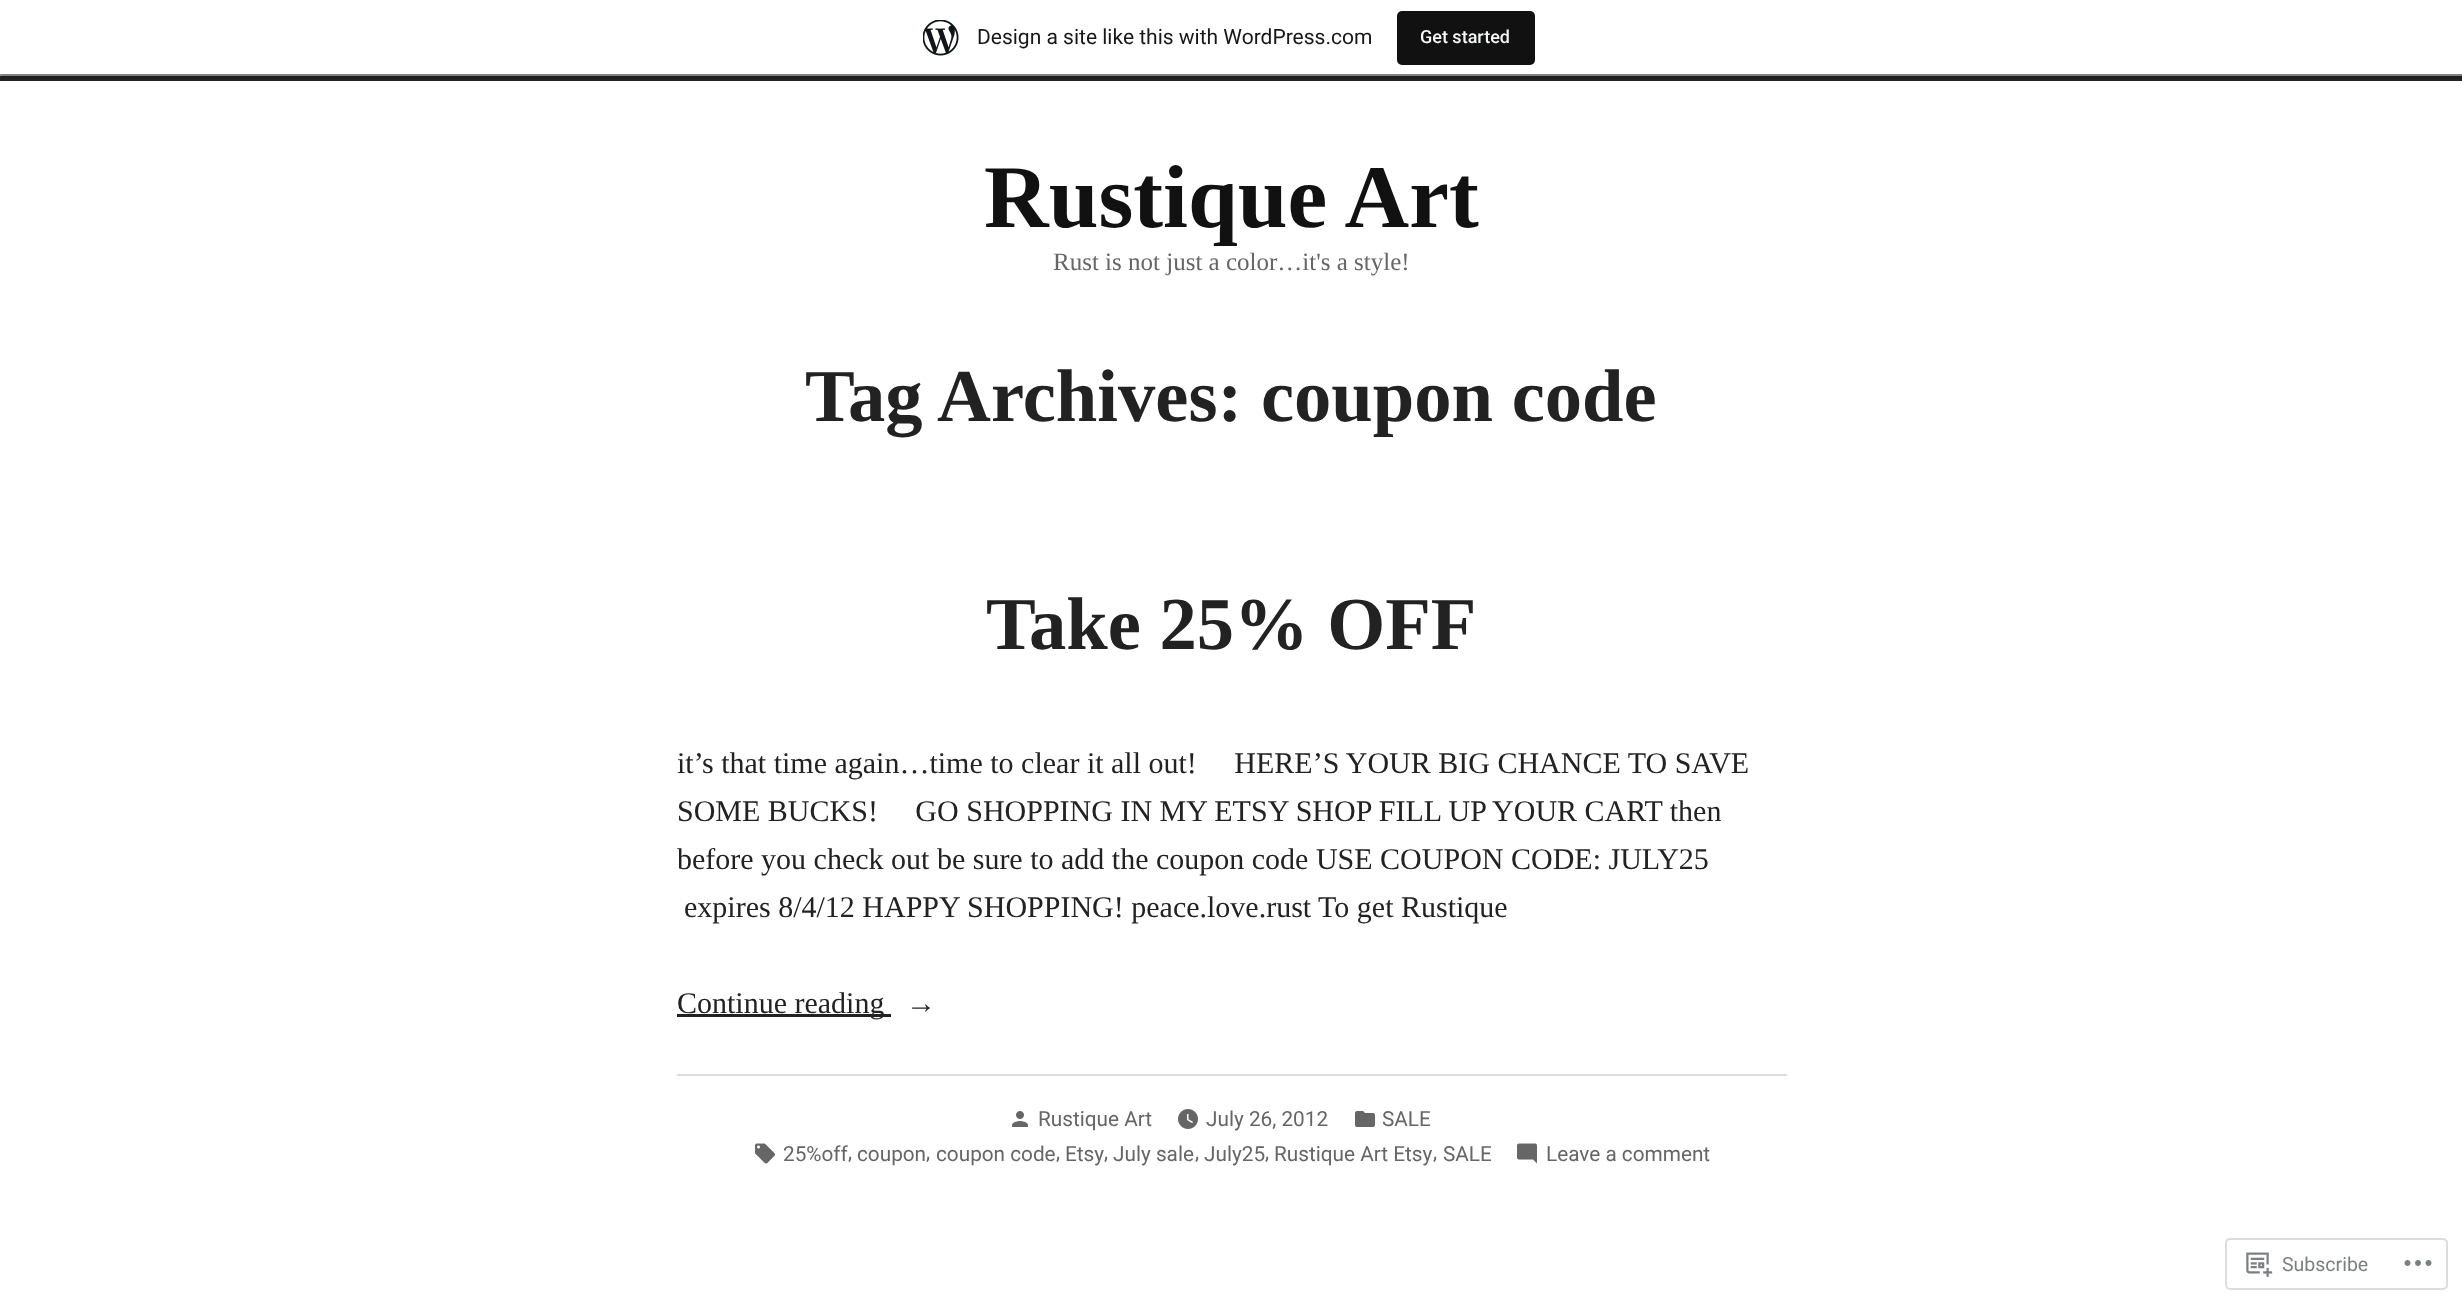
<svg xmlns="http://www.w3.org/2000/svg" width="2462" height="1304">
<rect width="100%" height="100%" fill="#fff"/>
<rect y="76" width="2462" height="5" fill="#222"/>
<rect y="74" width="2462" height="2" fill="#919191"/>
<rect y="2" width="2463" height="73" fill="#0000000d" filter="blur(1.5px)"/>
<path d="M2 74v4h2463v-73h-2v69z" fill="#00000014"/>
<rect y="1" width="2462" height="73" fill="#fff"/>
<image x="923" y="20" width="36" height="36" href="media/1.png"/>
<text x="977" y="44" style="font-family:Roboto;font-size:21px;fill:#171717">Design a site like this with WordPress.com</text>
<rect x="1397" y="11" width="138" height="54" rx="5" fill="#111"/>
<text x="1420" y="43" style="font-family:Roboto;font-size:18px;font-weight:500;fill:#f6f7f7">Get started</text>
<text x="984" y="227" style="font-family:Liberation Serif;font-size:89.5px;font-weight:bold;fill:#111">Rustique Art</text>
<text x="1053" y="270" style="font-family:Liberation Serif;font-size:25px;fill:#666">Rust is not just a color…it's a style!</text>
<text x="805" y="421" style="font-family:Liberation Serif;font-size:74.6px;font-weight:bold;fill:#222">Tag Archives: coupon code</text>
<text x="986" y="649" style="font-family:Liberation Serif;font-size:74.6px;font-weight:bold;fill:#222">Take 25% OFF</text>
<text x="677" y="773" style="font-family:Liberation Serif;font-size:30px;fill:#222" xml:space="preserve">it’s that time again…time to clear it all out!     HERE’S YOUR BIG CHANCE TO SAVE</text>
<text x="677" y="821" style="font-family:Liberation Serif;font-size:30px;fill:#222" xml:space="preserve">SOME BUCKS!     GO SHOPPING IN MY ETSY SHOP FILL UP YOUR CART then</text>
<text x="677" y="869" style="font-family:Liberation Serif;font-size:30px;fill:#222">before you check out be sure to add the coupon code USE COUPON CODE: JULY25</text>
<text x="684" y="917" style="font-family:Liberation Serif;font-size:30px;fill:#222">expires 8/4/12 HAPPY SHOPPING! peace.love.rust To get Rustique</text>
<rect x="677" y="1014" width="214" height="3" fill="#222"/>
<text x="677" y="1013" style="font-family:Liberation Serif;font-size:30px;fill:#222">Continue reading</text>
<text x="906" y="1013" style="font-family:Liberation Serif;font-size:30px;fill:#222">→</text>
<rect x="677" y="1074" width="1110" height="2" fill="#ddd"/>
<image x="1012" y="1111" width="16" height="16" href="media/2.png"/>
<text x="1038" y="1126" style="font-family:Roboto;font-size:20.75px;fill:#666">Rustique Art</text>
<image x="1178" y="1109" width="20" height="20" href="media/3.png"/>
<text x="1206" y="1126" style="font-family:Roboto;font-size:20.75px;fill:#666">July 26, 2012</text>
<image x="1355" y="1111" width="20" height="16" href="media/4.png"/>
<text x="1382" y="1126" style="font-family:Roboto;font-size:20.75px;fill:#666">SALE</text>
<image x="755" y="1143" width="20" height="21" href="media/5.png"/>
<text x="783" y="1161" style="font-family:Roboto;font-size:20.75px;fill:#666">25%off</text>
<text x="848" y="1159" style="font-family:Roboto;font-size:20.75px;fill:#666">,</text>
<text x="857" y="1161" style="font-family:Roboto;font-size:20.75px;fill:#666">coupon</text>
<text x="926" y="1159" style="font-family:Roboto;font-size:20.75px;fill:#666">,</text>
<text x="936" y="1161" style="font-family:Roboto;font-size:20.75px;fill:#666">coupon code</text>
<text x="1056" y="1159" style="font-family:Roboto;font-size:20.75px;fill:#666">,</text>
<text x="1065" y="1161" style="font-family:Roboto;font-size:20.75px;fill:#666">Etsy</text>
<text x="1104" y="1159" style="font-family:Roboto;font-size:20.75px;fill:#666">,</text>
<text x="1113" y="1161" style="font-family:Roboto;font-size:20.75px;fill:#666">July sale</text>
<text x="1195" y="1159" style="font-family:Roboto;font-size:20.75px;fill:#666">,</text>
<text x="1204" y="1161" style="font-family:Roboto;font-size:20.75px;fill:#666">July25</text>
<text x="1265" y="1159" style="font-family:Roboto;font-size:20.75px;fill:#666">,</text>
<text x="1274" y="1161" style="font-family:Roboto;font-size:20.75px;fill:#666">Rustique Art Etsy</text>
<text x="1433" y="1159" style="font-family:Roboto;font-size:20.75px;fill:#666">,</text>
<text x="1443" y="1161" style="font-family:Roboto;font-size:20.75px;fill:#666">SALE</text>
<image x="1517" y="1143" width="20" height="21" href="media/6.png"/>
<text x="1546" y="1161" style="font-family:Roboto;font-size:20.75px;fill:#666">Leave a comment</text>
<rect x="2226" y="1239" width="221" height="50" rx="4" fill="none" stroke="#dddddf" stroke-width="2"/>
<image x="2246" y="1252" width="27" height="25" href="media/7.png"/>
<text x="2282" y="1271" style="font-family:Roboto;font-size:19.5px;fill:#7b7f85">Subscribe</text>
<image x="2404" y="1260" width="28" height="6" href="media/8.png"/>
</svg>
